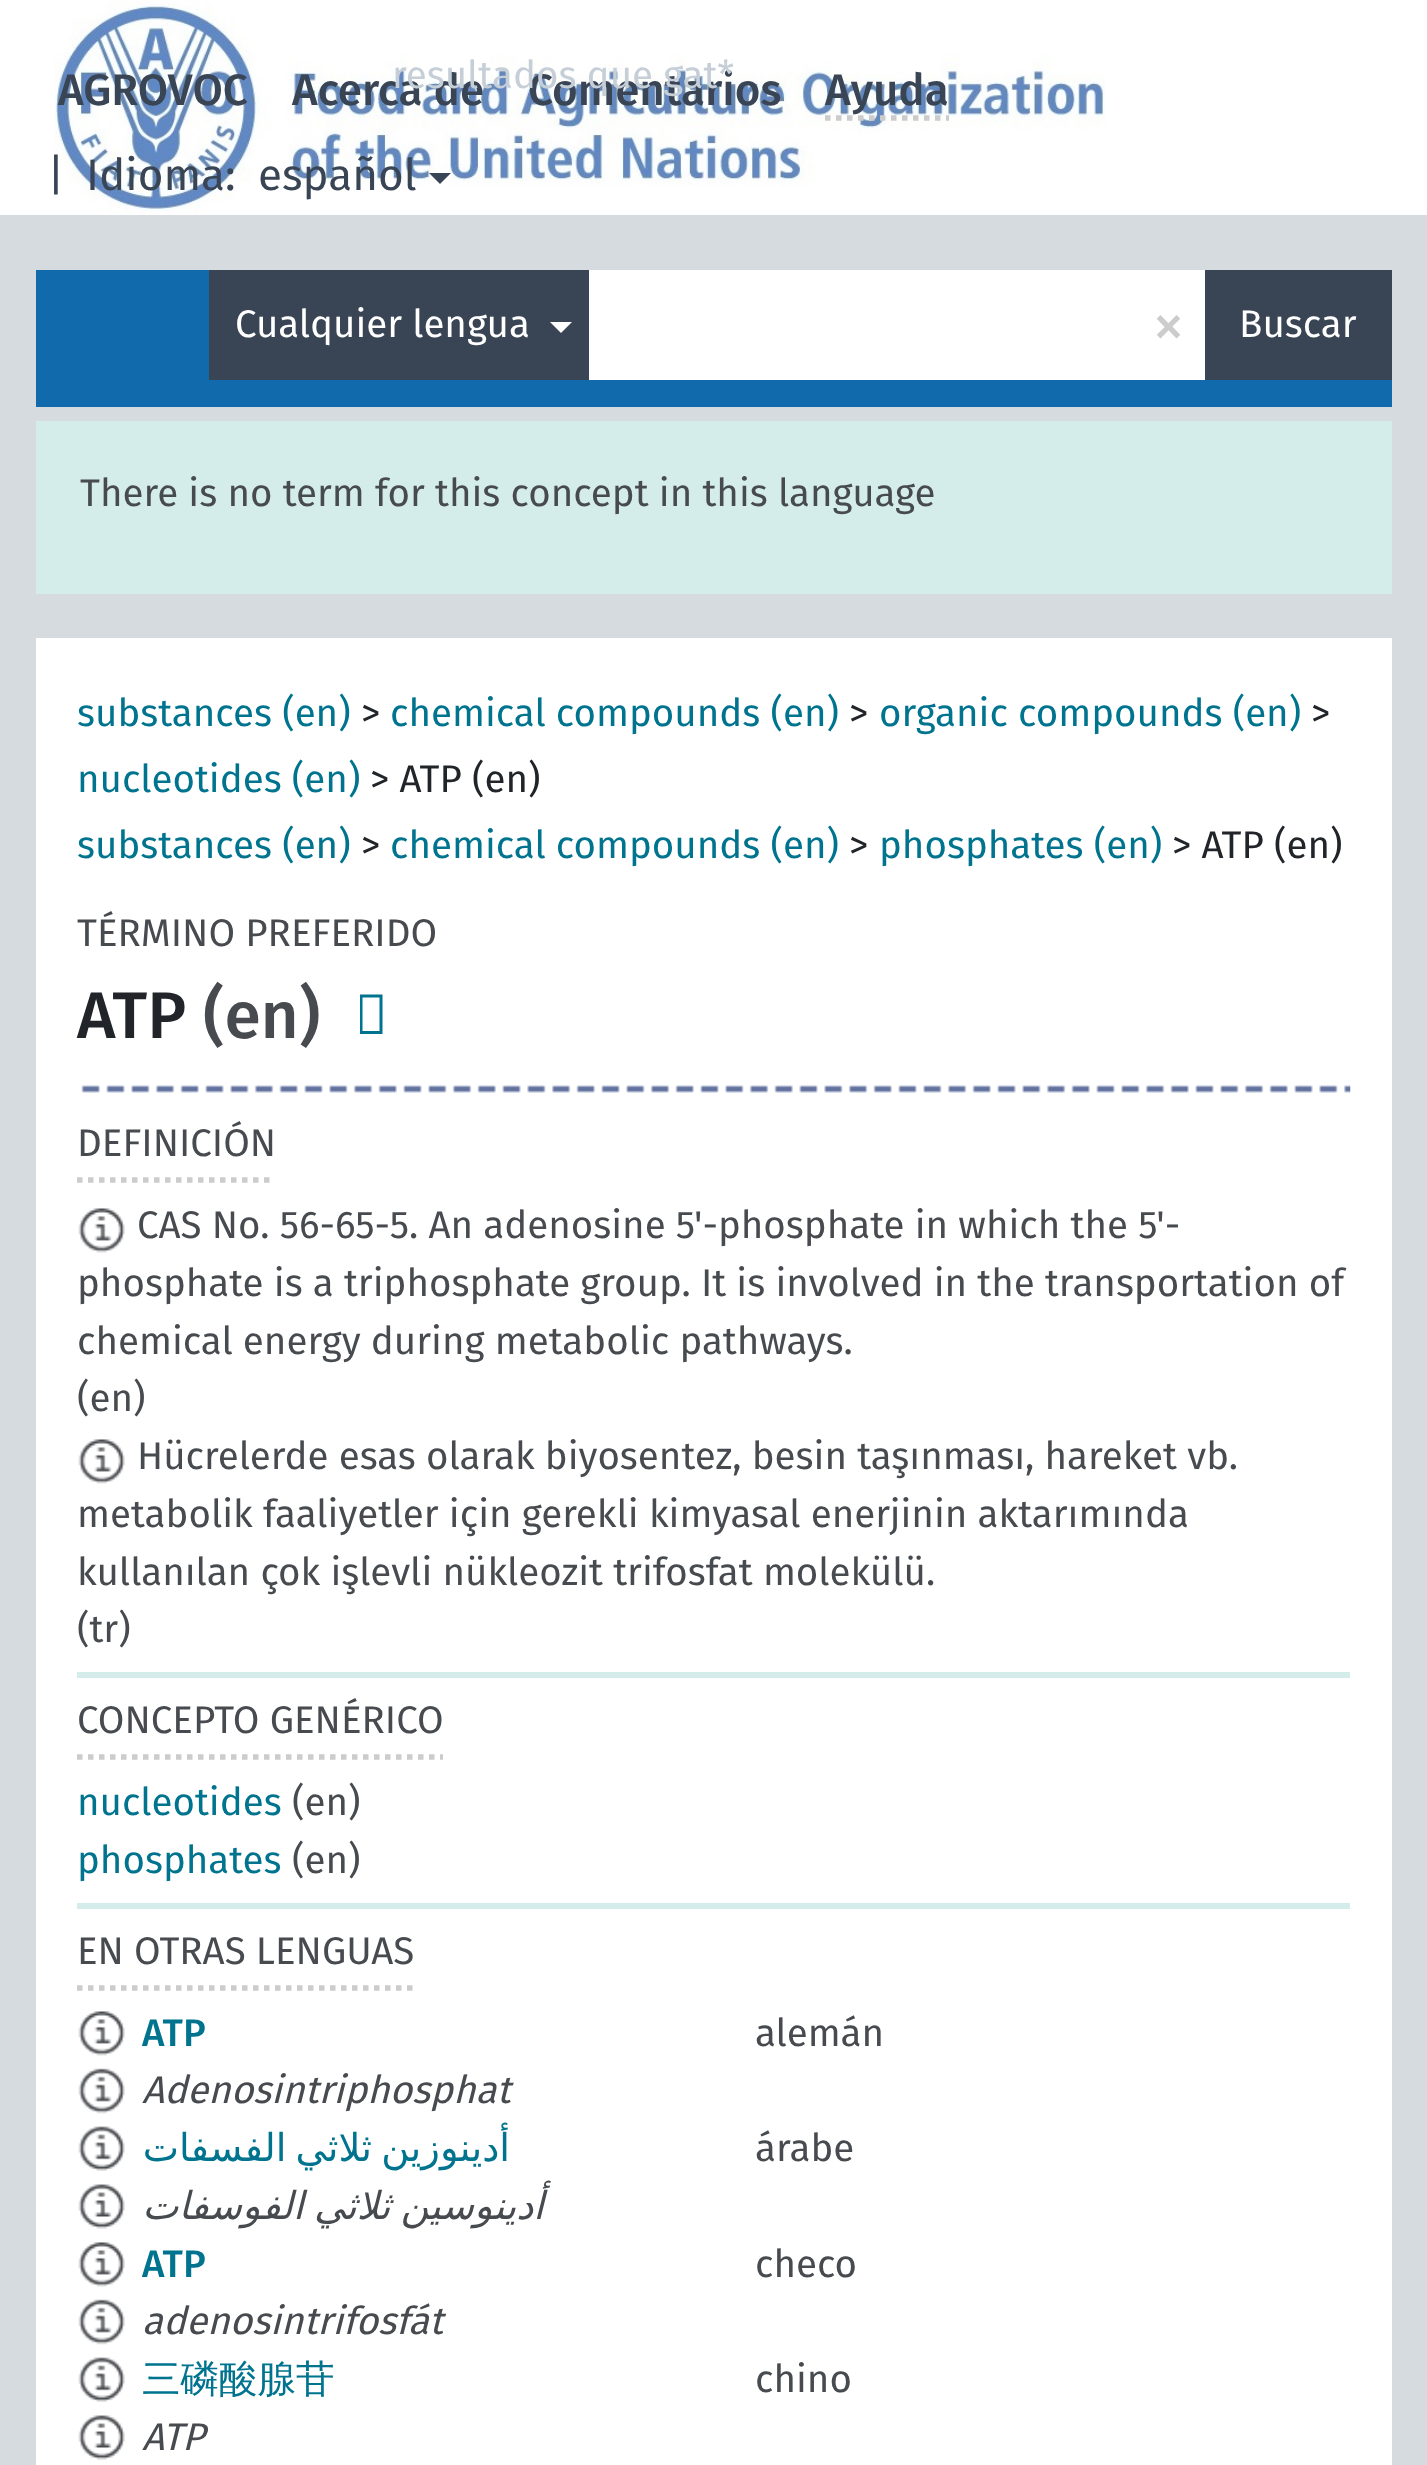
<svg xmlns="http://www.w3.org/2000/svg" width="1427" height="2465">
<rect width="100%" height="100%" fill="#d5dbde"/>
<rect width="1427" height="215" fill="#fff"/>
<image x="54" y="0" width="1052" height="214" href="media/1.png"/>
<text x="292" y="105" style="font-family:Fira Sans;font-size:44px;font-weight:500;fill:#394554">Acerca de</text>
<text x="528" y="105" style="font-family:Fira Sans;font-size:44px;font-weight:500;fill:#394554">Comentarios</text>
<text x="392" y="88" style="font-family:Fira Sans;font-size:38.5px;fill:#c6ced7">resultados que gat*</text>
<text x="825" y="105" style="font-family:Fira Sans;font-size:44px;font-weight:500;fill:#394554">Ayuda</text>
<path d="M825 118h124" fill="none" stroke="#ccc" stroke-width="5.5" stroke-dasharray="5.5 5.5"/>
<text x="58" y="105" style="font-family:Fira Sans;font-size:44px;font-weight:500;fill:#394554">AGROVOC</text>
<text x="47" y="190" style="font-family:Fira Sans;font-size:44px;fill:#394554">|</text>
<text x="86" y="190" style="font-family:Fira Sans;font-size:44px;fill:#394554">Idioma:</text>
<text x="258" y="190" style="font-family:Fira Sans;font-size:44px;fill:#394554">español</text>
<path d="M429 173h22l-11 11z" fill="#394554"/>
<rect x="36" y="270" width="1356" height="137" fill="#116aab"/>
<rect x="209" y="270" width="380" height="110" fill="#394554"/>
<text x="235" y="337" style="font-family:Fira Sans;font-size:38.5px;fill:#fff">Cualquier lengua</text>
<path d="M550 322h22l-11 11z" fill="#fff"/>
<rect x="589" y="270" width="616" height="110" fill="#fff"/>
<text x="1152" y="347" style="font-family:Fira Sans;font-size:66px;fill:#ccc">×</text>
<rect x="1205" y="270" width="187" height="110" fill="#394554"/>
<text x="1239" y="337" style="font-family:Fira Sans;font-size:38.5px;fill:#fff">Buscar</text>
<rect x="36" y="421" width="1356" height="173" fill="#d4edeb"/>
<text x="80" y="506" style="font-family:Fira Sans;font-size:38.5px;fill:#474b4f">There is no term for this concept in this language</text>
<rect x="36" y="638" width="1356" height="1827" fill="#fff"/>
<text x="77" y="726" style="font-family:Fira Sans;font-size:38.5px;fill:#00748f">substances (en)</text>
<text x="361" y="726" style="font-family:Fira Sans;font-size:38.5px;fill:#212529">&gt;</text>
<text x="390" y="726" style="font-family:Fira Sans;font-size:38.5px;fill:#00748f">chemical compounds (en)</text>
<text x="849" y="726" style="font-family:Fira Sans;font-size:38.5px;fill:#212529">&gt;</text>
<text x="879" y="726" style="font-family:Fira Sans;font-size:38.5px;fill:#00748f">organic compounds (en)</text>
<text x="1311" y="726" style="font-family:Fira Sans;font-size:38.5px;fill:#212529">&gt;</text>
<text x="77" y="792" style="font-family:Fira Sans;font-size:38.5px;fill:#00748f">nucleotides (en)</text>
<text x="370" y="792" style="font-family:Fira Sans;font-size:38.5px;fill:#212529">&gt; ATP (en)</text>
<text x="77" y="858" style="font-family:Fira Sans;font-size:38.5px;fill:#00748f">substances (en)</text>
<text x="361" y="858" style="font-family:Fira Sans;font-size:38.5px;fill:#212529">&gt;</text>
<text x="390" y="858" style="font-family:Fira Sans;font-size:38.5px;fill:#00748f">chemical compounds (en)</text>
<text x="849" y="858" style="font-family:Fira Sans;font-size:38.5px;fill:#212529">&gt;</text>
<text x="879" y="858" style="font-family:Fira Sans;font-size:38.5px;fill:#00748f">phosphates (en)</text>
<text x="1172" y="858" style="font-family:Fira Sans;font-size:38.5px;fill:#212529">&gt; ATP (en)</text>
<text x="77" y="946" style="font-family:Fira Sans;font-size:38.5px;fill:#474b4f">TÉRMINO PREFERIDO</text>
<text x="77" y="1038" style="font-family:Fira Sans;font-size:66px;font-weight:500;fill:#212529">ATP</text>
<text x="203" y="1038" style="font-family:Fira Sans;font-size:66px;font-weight:500;fill:#474b4f">(en)</text>
<path d="M360 1034v-39.5h22.5v39.5zm2.5-3h17v-33.5h-17z" fill="#00748f"/>
<image x="81" y="1085" width="1270" height="8" href="media/2.png"/>
<path d="M77 1180h198" fill="none" stroke="#ccc" stroke-width="5.5" stroke-dasharray="5.5 5.5"/>
<text x="77" y="1156" style="font-family:Fira Sans;font-size:38.5px;fill:#474b4f">DEFINICIÓN</text>
<rect x="77" y="1672" width="1273" height="6" fill="#d4edeb"/>
<image x="78" y="1208" width="47" height="45" href="media/3.png"/>
<text x="137" y="1238" style="font-family:Fira Sans;font-size:38.5px;fill:#474b4f">CAS No. 56-65-5. An adenosine 5'-phosphate in which the 5'-</text>
<text x="77" y="1296" style="font-family:Fira Sans;font-size:38.5px;fill:#474b4f">phosphate is a triphosphate group. It is involved in the transportation of</text>
<text x="77" y="1354" style="font-family:Fira Sans;font-size:38.5px;fill:#474b4f">chemical energy during metabolic pathways.</text>
<text x="77" y="1411" style="font-family:Fira Sans;font-size:38.5px;fill:#474b4f">(en)</text>
<image x="78" y="1439" width="47" height="45" href="media/3.png"/>
<text x="137" y="1469" style="font-family:Fira Sans;font-size:38.5px;fill:#474b4f">Hücrelerde esas olarak biyosentez, besin taşınması, hareket vb.</text>
<text x="77" y="1527" style="font-family:Fira Sans;font-size:38.5px;fill:#474b4f">metabolik faaliyetler için gerekli kimyasal enerjinin aktarımında</text>
<text x="77" y="1585" style="font-family:Fira Sans;font-size:38.5px;fill:#474b4f">kullanılan çok işlevli nükleozit trifosfat molekülü.</text>
<text x="77" y="1642" style="font-family:Fira Sans;font-size:38.5px;fill:#474b4f">(tr)</text>
<path d="M77 1757h366" fill="none" stroke="#ccc" stroke-width="5.5" stroke-dasharray="5.5 5.5"/>
<text x="77" y="1733" style="font-family:Fira Sans;font-size:38.5px;fill:#474b4f">CONCEPTO GENÉRICO</text>
<rect x="77" y="1903" width="1273" height="6" fill="#d4edeb"/>
<text x="77" y="1815" style="font-family:Fira Sans;font-size:38.5px;fill:#00748f">nucleotides</text>
<text x="292" y="1815" style="font-family:Fira Sans;font-size:38.5px;fill:#474b4f">(en)</text>
<text x="77" y="1873" style="font-family:Fira Sans;font-size:38.5px;fill:#00748f">phosphates</text>
<text x="292" y="1873" style="font-family:Fira Sans;font-size:38.5px;fill:#474b4f">(en)</text>
<path d="M77 1988h338" fill="none" stroke="#ccc" stroke-width="5.5" stroke-dasharray="5.5 5.5"/>
<text x="77" y="1964" style="font-family:Fira Sans;font-size:38.5px;fill:#474b4f">EN OTRAS LENGUAS</text>
<image x="78" y="2011" width="47" height="45" href="media/3.png"/>
<text x="142" y="2046" style="font-family:Fira Sans;font-size:38.5px;font-weight:500;fill:#00748f">ATP</text>
<text x="755" y="2046" style="font-family:Fira Sans;font-size:38.5px;fill:#474b4f">alemán</text>
<image x="78" y="2068" width="47" height="46" href="media/4.png"/>
<text x="142" y="2103" style="font-family:Fira Sans;font-size:38.5px;font-style:italic;fill:#474b4f">Adenosintriphosphat</text>
<image x="78" y="2126" width="47" height="45" href="media/5.png"/>
<text x="510" y="2161" word-spacing="-3" style="font-family:DejaVu Sans;font-size:38.5px;direction:rtl;fill:#00748f">أدينوزين ثلاثي الفسفات</text>
<text x="755" y="2161" style="font-family:Fira Sans;font-size:38.5px;fill:#474b4f">árabe</text>
<image x="78" y="2184" width="47" height="45" href="media/6.png"/>
<text x="544" y="2219" word-spacing="-2" style="font-family:DejaVu Sans;font-size:38.5px;font-style:italic;direction:rtl;fill:#474b4f">أدينوسين ثلاثي الفوسفات</text>
<image x="78" y="2242" width="47" height="45" href="media/3.png"/>
<text x="142" y="2277" style="font-family:Fira Sans;font-size:38.5px;font-weight:500;fill:#00748f">ATP</text>
<text x="755" y="2277" style="font-family:Fira Sans;font-size:38.5px;fill:#474b4f">checo</text>
<image x="78" y="2299" width="47" height="46" href="media/4.png"/>
<text x="142" y="2334" style="font-family:Fira Sans;font-size:38.5px;font-style:italic;fill:#474b4f">adenosintrifosfát</text>
<image x="78" y="2357" width="47" height="45" href="media/5.png"/>
<text x="142" y="2392" style="font-family:WenQuanYi Zen Hei;font-size:38.5px;font-weight:500;fill:#00748f">三磷酸腺苷</text>
<text x="755" y="2392" style="font-family:Fira Sans;font-size:38.5px;fill:#474b4f">chino</text>
<image x="78" y="2415" width="47" height="45" href="media/7.png"/>
<text x="142" y="2450" style="font-family:Fira Sans;font-size:38.5px;font-style:italic;fill:#474b4f">ATP</text>
</svg>
